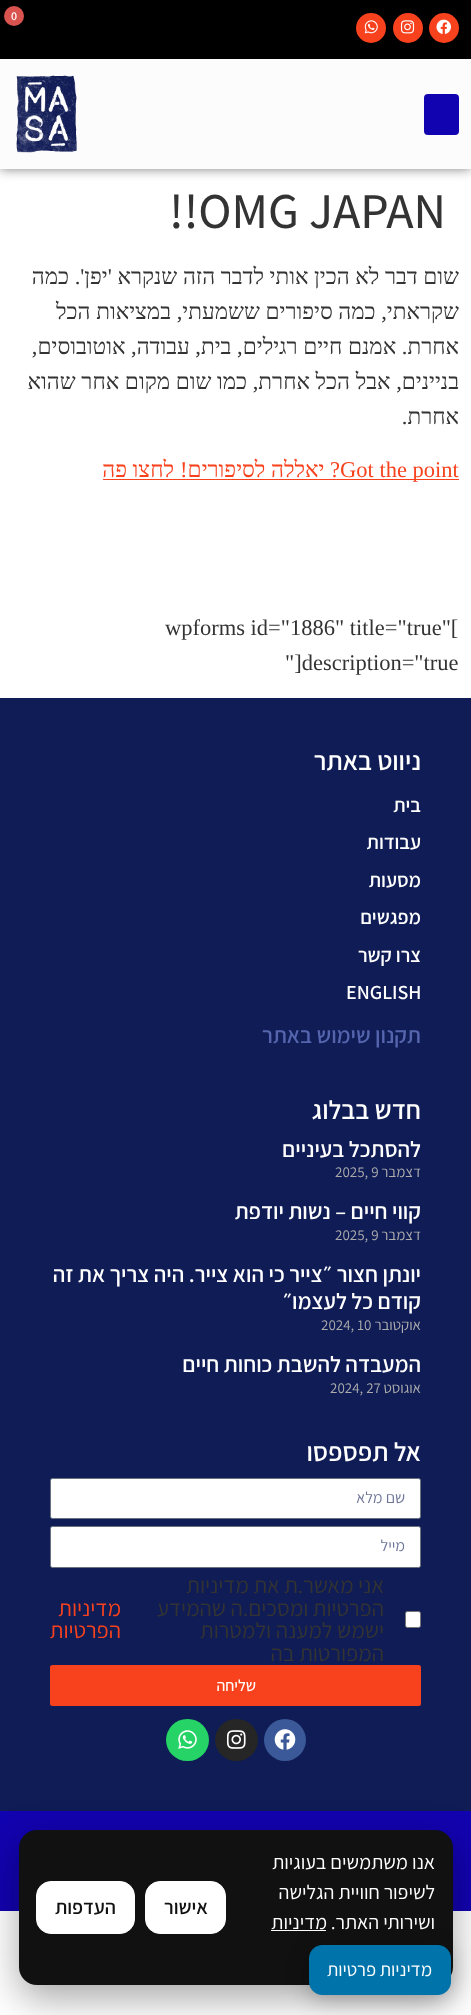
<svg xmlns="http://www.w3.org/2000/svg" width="471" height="2015">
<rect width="100%" height="100%" fill="#fff"/>
<rect width="471" height="59" fill="#000"/>
<circle cx="444" cy="28" r="15" fill="#f8421e"/>
<image x="436" y="19" width="15" height="15" href="media/1.png"/>
<circle cx="408" cy="28" r="15" fill="#f8421e"/>
<image x="400" y="20" width="15" height="14" href="media/2.png"/>
<circle cx="371" cy="28" r="15" fill="#f8421e"/>
<image x="364" y="20" width="14" height="14" href="media/3.png"/>
<circle cx="14" cy="16" r="10" fill="#d9534f"/>
<text x="11" y="20" style="font-family:Assistant;font-size:12px;font-weight:600;fill:#fff">0</text>
<rect y="59" width="471" height="110" fill="#00000080" filter="blur(6px)"/>
<rect y="59" width="471" height="110" fill="#fcfcfc"/>
<rect x="424" y="94" width="35" height="41" rx="4" fill="#1203b0"/>
<image x="16" y="75" width="61" height="78" href="media/4.png"/>
<text x="169" y="228" style="font-family:Assistant;font-size:50px;font-weight:500;fill:#333">!!OMG JAPAN</text>
<text x="459" y="284" style="font-family:Liberation Serif;font-size:22.5px;direction:rtl;fill:#333">שום דבר לא הכין אותי לדבר הזה שנקרא 'יפן'. כמה</text>
<text x="459" y="319" style="font-family:Liberation Serif;font-size:22.5px;direction:rtl;fill:#333">שקראתי, כמה סיפורים ששמעתי, במציאות הכל</text>
<text x="459" y="354" style="font-family:Liberation Serif;font-size:22.5px;direction:rtl;fill:#333">אחרת. אמנם חיים רגילים, בית, עבודה, אוטובוסים,</text>
<text x="459" y="389" style="font-family:Liberation Serif;font-size:22.5px;direction:rtl;fill:#333">בניינים, אבל הכל אחרת, כמו שום מקום אחר שהוא</text>
<text x="459" y="424" style="font-family:Liberation Serif;font-size:22.5px;direction:rtl;fill:#333">אחרת.</text>
<rect x="103" y="479" width="356" height="1" fill="#f8421e"/>
<text x="340" y="477" style="font-family:Liberation Serif;font-size:22.5px;fill:#f8421e">Got the point</text>
<text x="340" y="477" style="font-family:Liberation Serif;font-size:22.5px;direction:rtl;fill:#f8421e">? יאללה לסיפורים!</text>
<text x="174" y="477" style="font-family:Liberation Serif;font-size:22.5px;direction:rtl;fill:#f8421e">לחצו פה</text>
<text x="165" y="635" style="font-family:Liberation Serif;font-size:22.5px;fill:#333">wpforms id="1886" title="true"[</text>
<text x="285" y="670" style="font-family:Liberation Serif;font-size:22.5px;fill:#333">"]description="true</text>
<rect y="698" width="471" height="1113" fill="#0f1c55"/>
<text x="421" y="770" style="font-family:Assistant;font-size:26.25px;font-weight:600;direction:rtl;fill:#fff">ניווט באתר</text>
<text x="421" y="812" style="font-family:Assistant;font-size:20px;font-weight:600;direction:rtl;fill:#fff">בית</text>
<text x="421" y="849" style="font-family:Assistant;font-size:20px;font-weight:600;direction:rtl;fill:#fff">עבודות</text>
<text x="421" y="887" style="font-family:Assistant;font-size:20px;font-weight:600;direction:rtl;fill:#fff">מסעות</text>
<text x="421" y="924" style="font-family:Assistant;font-size:20px;font-weight:600;direction:rtl;fill:#fff">מפגשים</text>
<text x="421" y="962" style="font-family:Assistant;font-size:20px;font-weight:600;direction:rtl;fill:#fff">צרו קשר</text>
<text x="346" y="999" style="font-family:Assistant;font-size:20px;font-weight:600;fill:#fff">ENGLISH</text>
<text x="421" y="1043" style="font-family:Assistant;font-size:22.5px;font-weight:600;direction:rtl;fill:#5465ae">תקנון שימוש באתר</text>
<text x="421" y="1119" style="font-family:Assistant;font-size:26.25px;font-weight:600;direction:rtl;fill:#fff">חדש בבלוג</text>
<text x="421" y="1157" style="font-family:Assistant;font-size:22.5px;font-weight:600;direction:rtl;fill:#fff">להסתכל בעיניים</text>
<text x="421" y="1177" style="font-family:Assistant;font-size:15px;direction:rtl;fill:#adadad">דצמבר</text>
<text x="335" y="1177" style="font-family:Assistant;font-size:15px;fill:#adadad">2025, 9</text>
<text x="421" y="1219" style="font-family:Assistant;font-size:22.5px;font-weight:600;direction:rtl;fill:#fff">קווי חיים – נשות יודפת</text>
<text x="421" y="1240" style="font-family:Assistant;font-size:15px;direction:rtl;fill:#adadad">דצמבר</text>
<text x="335" y="1240" style="font-family:Assistant;font-size:15px;fill:#adadad">2025, 9</text>
<text x="421" y="1282" style="font-family:Assistant;font-size:22.5px;font-weight:600;direction:rtl;fill:#fff">יונתן חצור ״צייר כי הוא צייר. היה צריך את זה</text>
<text x="421" y="1309" style="font-family:Assistant;font-size:22.5px;font-weight:600;direction:rtl;fill:#fff">קודם כל לעצמו״</text>
<text x="421" y="1330" style="font-family:Assistant;font-size:15px;direction:rtl;fill:#adadad">אוקטובר</text>
<text x="321" y="1330" style="font-family:Assistant;font-size:15px;fill:#adadad">2024, 10</text>
<text x="421" y="1372" style="font-family:Assistant;font-size:22.5px;font-weight:600;direction:rtl;fill:#fff">המעבדה להשבת כוחות חיים</text>
<text x="421" y="1393" style="font-family:Assistant;font-size:15px;direction:rtl;fill:#adadad">אוגוסט</text>
<text x="330" y="1393" style="font-family:Assistant;font-size:15px;fill:#adadad">2024, 27</text>
<text x="421" y="1461" style="font-family:Assistant;font-size:26.25px;font-weight:600;direction:rtl;fill:#fff">אל תפספסו</text>
<rect x="50.5" y="1478.5" width="370" height="40" rx="2" fill="#fff" stroke="#69727d"/>
<text x="405" y="1503" style="font-family:Assistant;font-size:16px;direction:rtl;fill:#6f7799">שם מלא</text>
<rect x="50.5" y="1526.5" width="370" height="41" rx="2" fill="#fff" stroke="#69727d"/>
<text x="405" y="1551" style="font-family:Assistant;font-size:16px;direction:rtl;fill:#6f7799">מייל</text>
<text x="384" y="1593" style="font-family:Assistant;font-size:22.5px;direction:rtl;fill:#333">אני מאשר.ת את מדיניות</text>
<rect x="405.5" y="1611.5" width="15" height="16" rx="2" fill="#fff" stroke="#767676"/>
<text x="384" y="1616" style="font-family:Assistant;font-size:22.5px;direction:rtl;fill:#333">הפרטיות ומסכים.ה שהמידע</text>
<text x="121" y="1616" style="font-family:Assistant;font-size:22.5px;direction:rtl;fill:#f8421e">מדיניות</text>
<text x="121" y="1638" style="font-family:Assistant;font-size:22.5px;direction:rtl;fill:#f8421e">הפרטיות</text>
<text x="384" y="1638" style="font-family:Assistant;font-size:22.5px;direction:rtl;fill:#333">ישמש למענה ולמטרות</text>
<text x="384" y="1661" style="font-family:Assistant;font-size:22.5px;direction:rtl;fill:#333">המפורטות בה</text>
<rect x="50" y="1665" width="371" height="41" rx="2.5" fill="#f8421e"/>
<text x="256" y="1691" style="font-family:Assistant;font-size:16px;font-weight:500;direction:rtl;fill:#fff">שליחה</text>
<circle cx="285" cy="1740" r="21" fill="#3b5998"/>
<image x="274" y="1729" width="22" height="21" href="media/5.png"/>
<rect x="215" y="1719" width="43" height="42" rx="21" fill="#262626"/>
<image x="226" y="1730" width="20" height="19" href="media/6.png"/>
<rect x="166" y="1719" width="43" height="42" rx="21" fill="#25d366"/>
<image x="178" y="1730" width="19" height="19" href="media/7.png"/>
<rect y="1811" width="471" height="100" fill="#1203b0"/>
<rect x="19" y="1843" width="434" height="155" rx="18" fill="#00000059" filter="blur(19px)"/>
<rect x="19" y="1830" width="434" height="155" rx="18" fill="#111"/>
<text x="435" y="1869" style="font-family:Assistant;font-size:20px;direction:rtl;fill:#fff">אנו משתמשים בעוגיות</text>
<text x="435" y="1899" style="font-family:Assistant;font-size:20px;direction:rtl;fill:#fff">לשיפור חוויית הגלישה</text>
<text x="435" y="1929" style="font-family:Assistant;font-size:20px;direction:rtl;fill:#fff">ושירותי האתר.</text>
<text x="327" y="1929" style="font-family:Assistant;font-size:20px;direction:rtl;fill:#fff">מדיניות</text>
<rect x="271" y="1930" width="55" height="1" fill="#fff"/>
<rect x="145.5" y="1881.5" width="80" height="52" rx="14.5" fill="#fff" stroke="#fff"/>
<text x="208" y="1914" style="font-family:Assistant;font-size:20px;font-weight:600;direction:rtl;fill:#111">אישור</text>
<rect x="36.5" y="1881.5" width="98" height="52" rx="14.5" fill="#fff" stroke="#fff"/>
<text x="116" y="1914" style="font-family:Assistant;font-size:20px;font-weight:600;direction:rtl;fill:#111">העדפות</text>
<rect x="309" y="1950" width="142" height="50" rx="13" fill="#00000040" filter="blur(11px)"/>
<rect x="309.5" y="1945.5" width="141" height="49" rx="12.5" fill="#0073aa" stroke="#0073aa"/>
<text x="432" y="1976" style="font-family:Assistant;font-size:18.75px;direction:rtl;fill:#fff">מדיניות פרטיות</text>
</svg>
